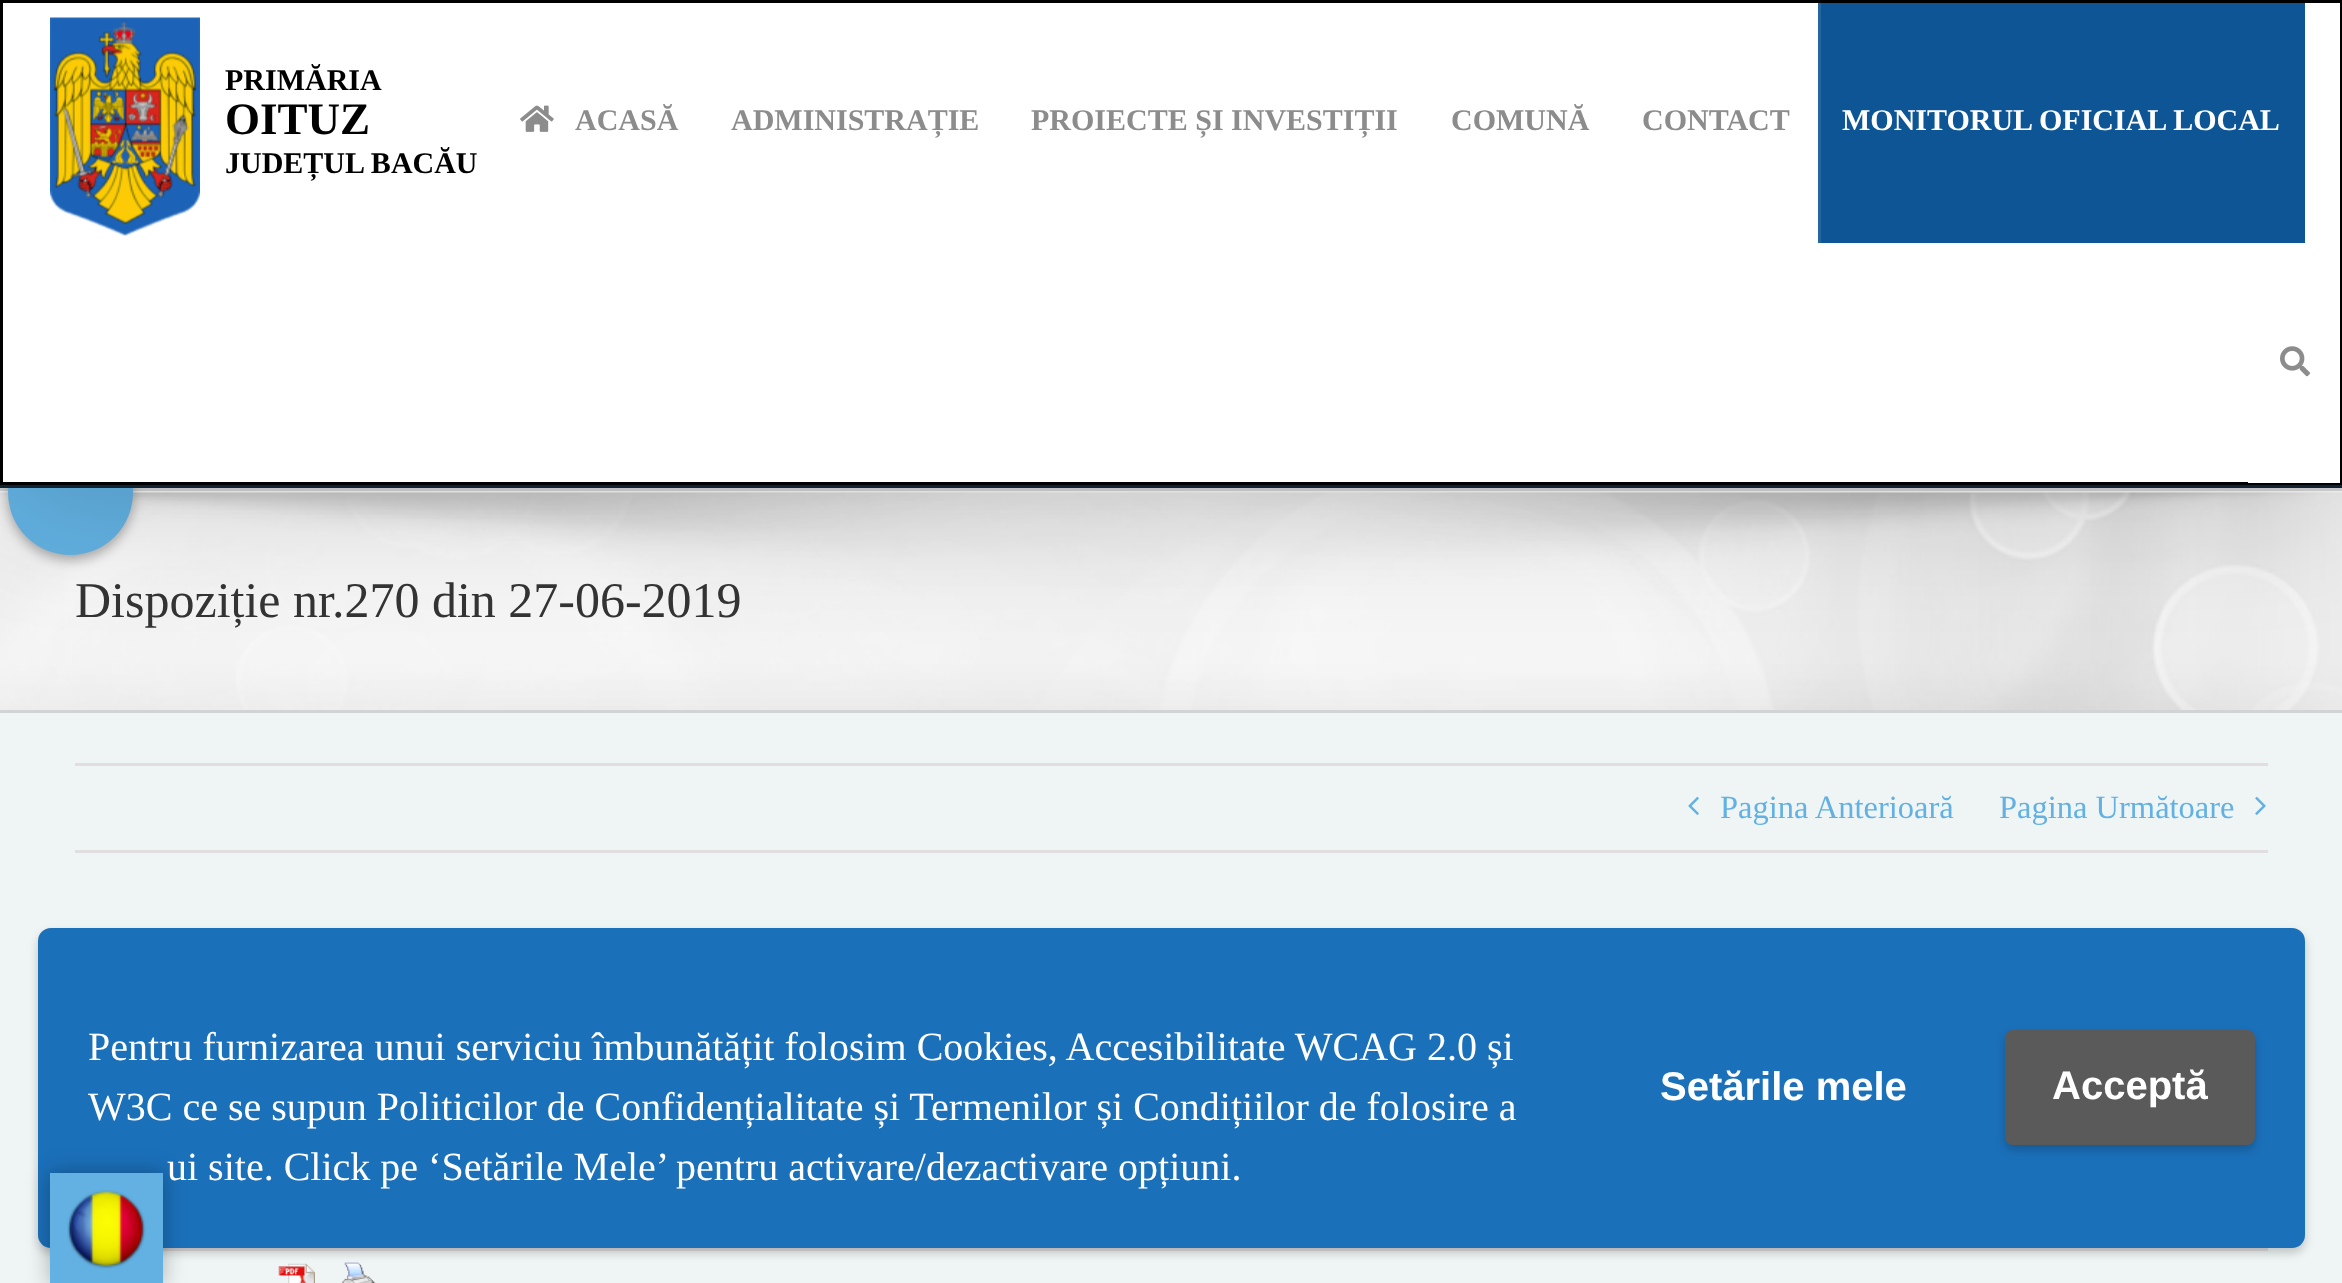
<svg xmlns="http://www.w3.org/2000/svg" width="2342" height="1283">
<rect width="100%" height="100%" fill="#eff5f5"/>
<rect y="491" width="2342" height="219" fill="#f6f6f6"/>
<image x="0" y="492" width="2342" height="218" href="media/4.png"/>
<rect y="488" width="2342" height="3" fill="#d2d3d4"/>
<rect x="8" y="435" width="125" height="125" rx="62.5" fill="#0000004d" filter="blur(6px)"/>
<circle cx="70.5" cy="492.5" r="62.5" fill="#62b1e2"/>
<rect x="5" y="30" width="2333" height="478" fill="#00000024" filter="blur(62.5px)"/>
<rect y="485" width="2342" height="3" fill="#123"/>
<rect x="1.5" y="1.5" width="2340" height="482" fill="#fff" stroke="#000" stroke-width="3"/>
<image x="50" y="17" width="150" height="219" href="media/1.png"/>
<text x="225" y="90" style="font-family:Liberation Serif;font-size:30px;font-weight:bold;fill:#000">PRIMĂRIA</text>
<text x="225" y="134" style="font-family:Liberation Serif;font-size:45px;font-weight:bold;fill:#000">OITUZ</text>
<text x="225" y="173" style="font-family:Liberation Serif;font-size:30px;font-weight:bold;fill:#000">JUDEȚUL BACĂU</text>
<image x="520" y="105" width="34" height="27" href="media/2.png"/>
<text x="575" y="130" style="font-family:Liberation Serif;font-size:30px;font-weight:bold;fill:#8c8c8c">ACASĂ</text>
<text x="731" y="130" style="font-family:Liberation Serif;font-size:30px;font-weight:bold;fill:#8c8c8c">ADMINISTRAȚIE</text>
<text x="1031" y="130" style="font-family:Liberation Serif;font-size:30px;font-weight:bold;fill:#8c8c8c">PROIECTE ȘI INVESTIȚII</text>
<text x="1451" y="130" style="font-family:Liberation Serif;font-size:30px;font-weight:bold;fill:#8c8c8c">COMUNĂ</text>
<text x="1642" y="130" style="font-family:Liberation Serif;font-size:30px;font-weight:bold;fill:#8c8c8c">CONTACT</text>
<rect x="1821" y="3" width="484" height="240" fill="#0d5595"/>
<rect x="1818" y="3" width="3" height="240" fill="#2566a0"/>
<text x="1842" y="130" style="font-family:Liberation Serif;font-size:30px;font-weight:bold;fill:#fff">MONITORUL OFICIAL LOCAL</text>
<rect x="2248" y="482" width="92" height="1" fill="#fff"/>
<image x="2280" y="346" width="30" height="31" href="media/3.png"/>
<rect y="710" width="2342" height="3" fill="#d2d3d4"/>
<text x="75" y="617" style="font-family:Liberation Serif;font-size:50px;fill:#333">Dispoziție nr.270 din 27-06-2019</text>
<rect x="75" y="763" width="2193" height="3" fill="#e0dede"/>
<rect x="75" y="850" width="2193" height="3" fill="#e0dede"/>
<image x="1688" y="796" width="11" height="19" href="media/5.png"/>
<text x="1720" y="818" style="font-family:Liberation Serif;font-size:32.5px;fill:#62b1e2">Pagina Anterioară</text>
<text x="1999" y="818" style="font-family:Liberation Serif;font-size:32.5px;fill:#62b1e2">Pagina Următoare</text>
<image x="2255" y="796" width="11" height="19" href="media/6.png"/>
<rect x="163" y="1248" width="2105" height="3" fill="#e0dede"/>
<image x="278" y="1263" width="37" height="20" href="media/7.png"/>
<image x="342" y="1262" width="34" height="21" href="media/8.png"/>
<rect x="38" y="933" width="2267" height="320" rx="13" fill="#00000033" filter="blur(5px)"/>
<rect x="38" y="928" width="2267" height="320" rx="13" fill="#1b70ba"/>
<rect x="50" y="1173" width="113" height="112" fill="#0000004d" filter="blur(11px)"/>
<rect x="50" y="1173" width="113" height="110" fill="#62b1e2"/>
<image x="67" y="1190" width="79" height="79" href="media/9.png"/>
<text x="88" y="1060" style="font-family:Liberation Serif;font-size:40px;fill:#fff">Pentru furnizarea unui serviciu îmbunătățit folosim Cookies, Accesibilitate WCAG 2.0 și</text>
<text x="88" y="1120" style="font-family:Liberation Serif;font-size:40px;fill:#fff">W3C ce se supun Politicilor de Confidențialitate și Termenilor și Condițiilor de folosire a</text>
<text x="167" y="1180" style="font-family:Liberation Serif;font-size:40px;fill:#fff">ui site. Click pe ‘Setările Mele’ pentru activare/dezactivare opțiuni.</text>
<text x="1660" y="1100" style="font-family:Liberation Sans;font-size:40px;font-weight:bold;fill:#fff">Setările mele</text>
<rect x="2005" y="1035" width="250" height="115" rx="8" fill="#00000033" filter="blur(5px)"/>
<rect x="2006.5" y="1031.5" width="247" height="112" rx="6.5" fill="#5a5a5a" stroke="#5a5a5a" stroke-width="3"/>
<text x="2052" y="1099" style="font-family:Liberation Sans;font-size:40px;font-weight:bold;fill:#fff">Acceptă</text>
</svg>
